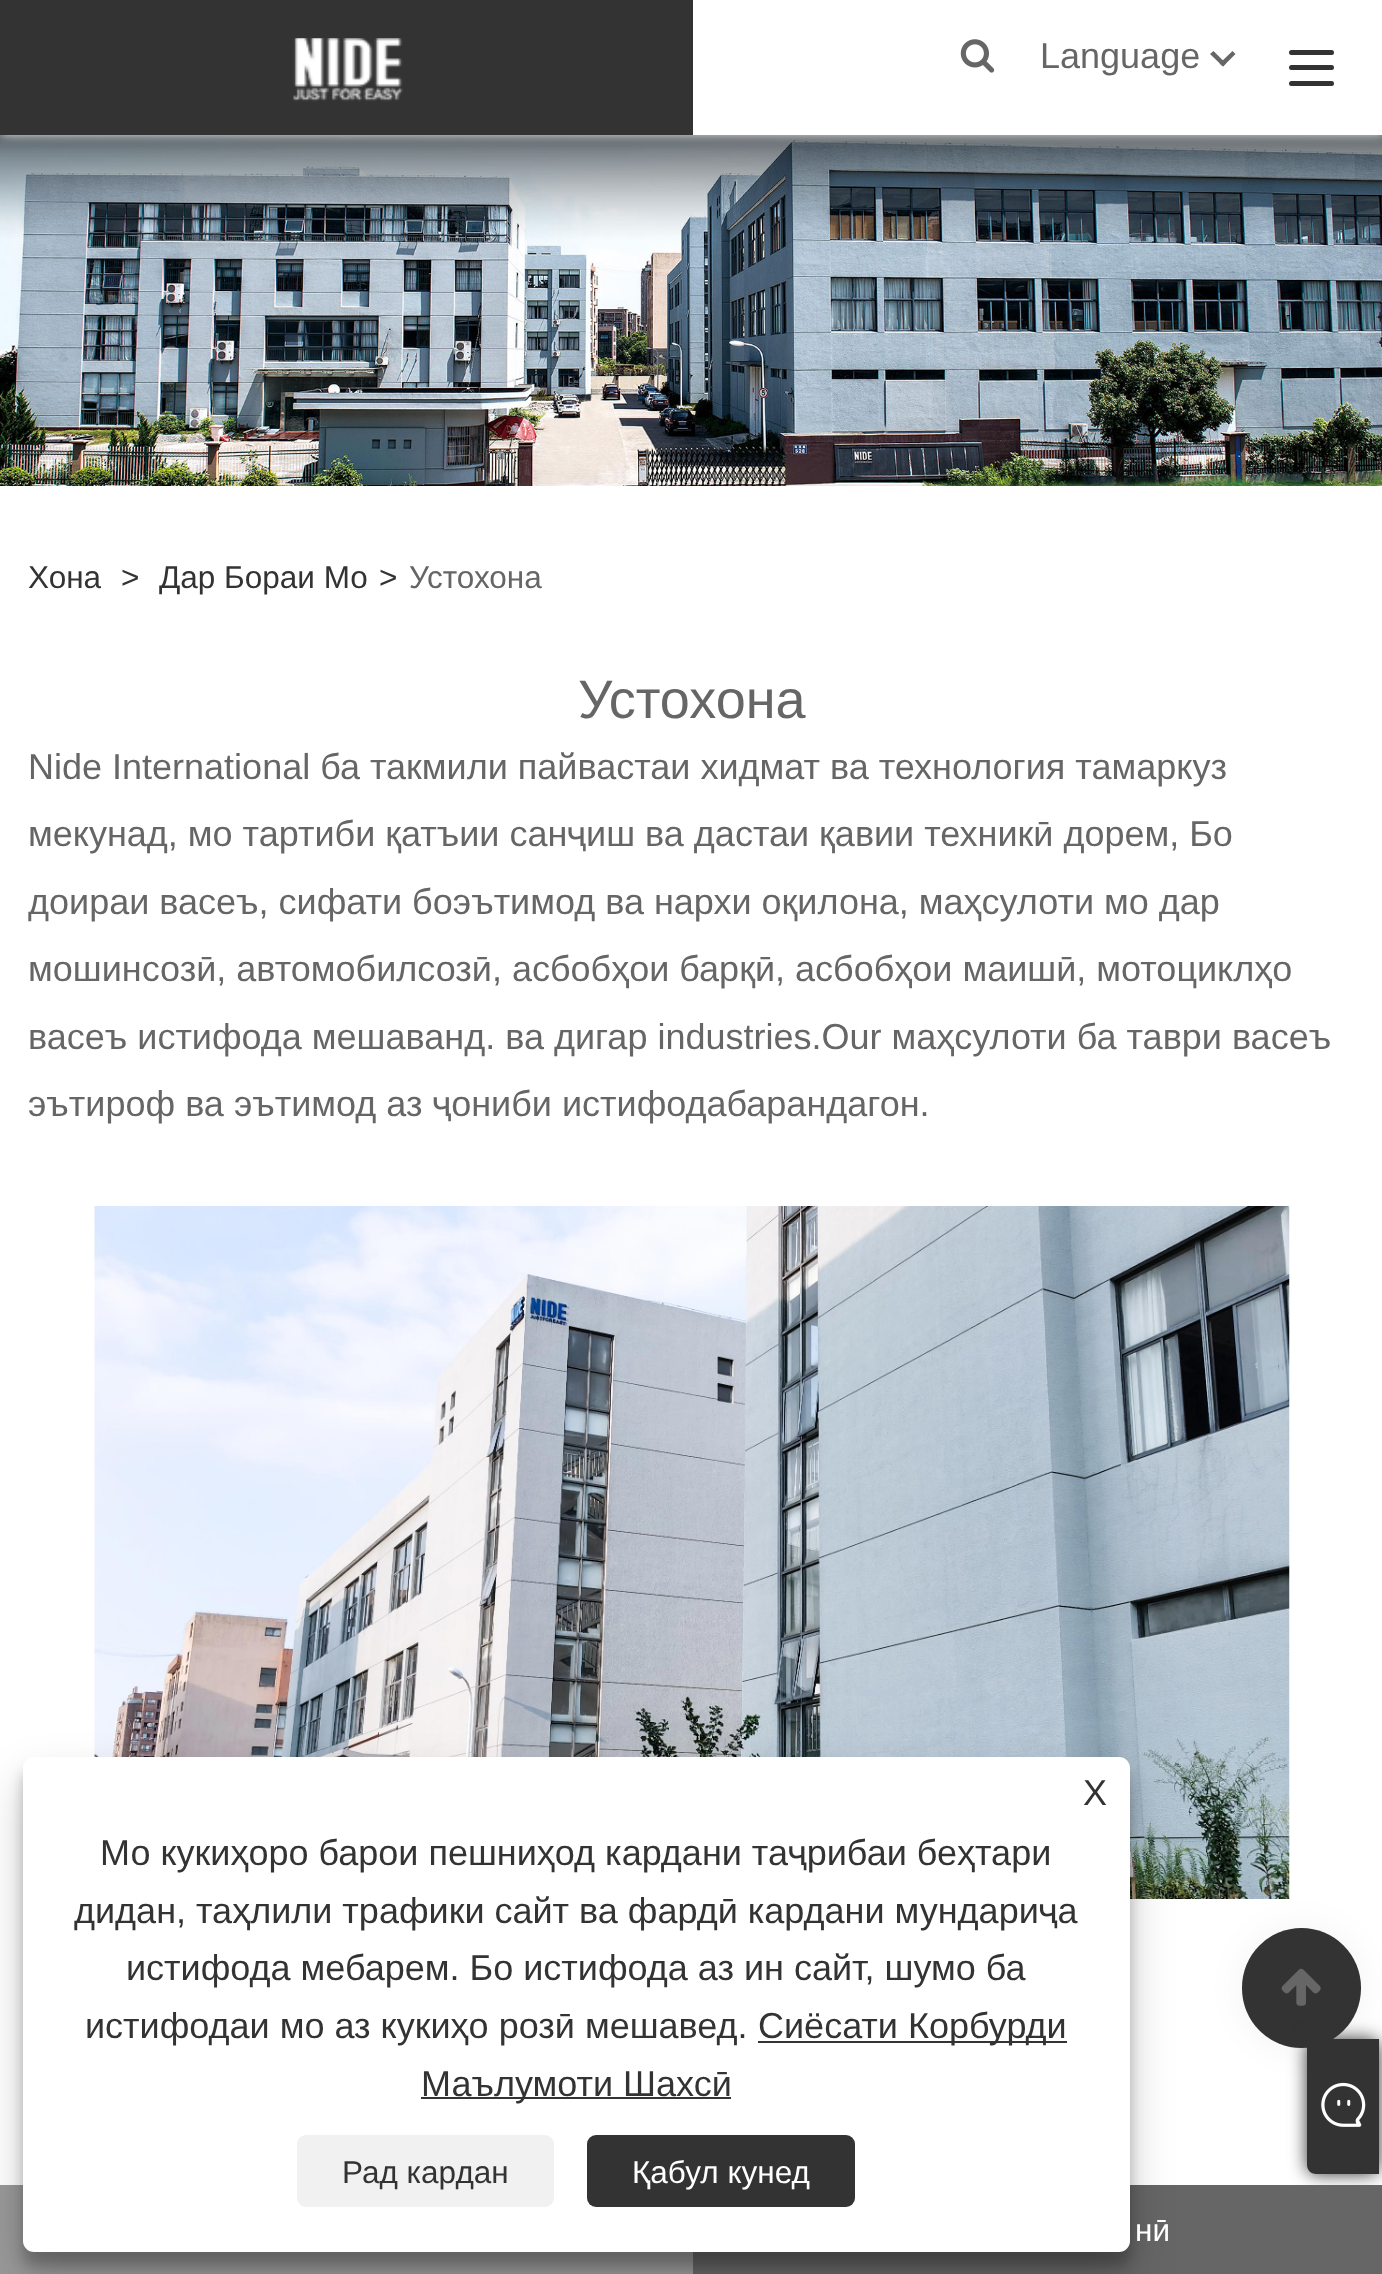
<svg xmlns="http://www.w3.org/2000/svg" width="1382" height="2274">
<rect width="100%" height="100%" fill="#fff"/>
<image x="0" y="135" width="1382" height="351" href="media/3.png"/>
<rect width="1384" height="135" fill="#eee" filter="blur(5.5px)"/>
<rect x="693" width="689" height="135" fill="#fff"/>
<rect width="693" height="135" fill="#333"/>
<image x="293" y="38" width="110" height="64" href="media/1.png"/>
<image x="960" y="39" width="35" height="34" href="media/2.png"/>
<text x="1040" y="68" style="font-family:Liberation Sans;font-size:36px;fill:#666">Language</text>
<path d="M1219.5 63.5l13-12.5l3 3l-12.5 12.5z" fill="#666"/>
<path d="M1210 54l3.5-3l12.5 12.5l-3 3z" fill="#666"/>
<rect x="1289" y="50" width="45" height="5" rx="2.5" fill="#333"/>
<rect x="1289" y="65" width="45" height="5" rx="2.5" fill="#333"/>
<rect x="1289" y="81" width="45" height="5" rx="2.5" fill="#333"/>
<text x="28" y="588" style="font-family:Liberation Sans;font-size:31.5px;fill:#333">Хона</text>
<text x="121" y="588" style="font-family:Liberation Sans;font-size:31.5px;fill:#333">&gt;</text>
<text x="159" y="588" style="font-family:Liberation Sans;font-size:31.5px;fill:#333">Дар Бораи Мо</text>
<text x="379" y="588" style="font-family:Liberation Sans;font-size:31.5px;fill:#333">&gt;</text>
<text x="409" y="588" style="font-family:Liberation Sans;font-size:31.5px;fill:#666">Устохона</text>
<text x="578" y="718" style="font-family:Liberation Sans;font-size:54px;fill:#666">Устохона</text>
<text x="28" y="779" style="font-family:Liberation Sans;font-size:36px;fill:#666">Nide International ба такмили пайвастаи хидмат ва технология тамаркуз</text>
<text x="28" y="846" style="font-family:Liberation Sans;font-size:36px;fill:#666">мекунад, мо тартиби қатъии санҷиш ва дастаи қавии техникӣ дорем, Бо</text>
<text x="28" y="914" style="font-family:Liberation Sans;font-size:36px;fill:#666">доираи васеъ, сифати боэътимод ва нархи оқилона, маҳсулоти мо дар</text>
<text x="28" y="981" style="font-family:Liberation Sans;font-size:36px;fill:#666">мошинсозӣ, автомобилсозӣ, асбобҳои барқӣ, асбобҳои маишӣ, мотоциклҳо</text>
<text x="28" y="1049" style="font-family:Liberation Sans;font-size:36px;fill:#666">васеъ истифода мешаванд. ва дигар industries.Our маҳсулоти ба таври васеъ</text>
<text x="28" y="1116" style="font-family:Liberation Sans;font-size:36px;fill:#666">эътироф ва эътимод аз ҷониби истифодабарандагон.</text>
<image x="94" y="1206" width="1196" height="693" href="media/4.png"/>
<rect y="2185" width="693" height="89" fill="#999"/>
<rect x="1242" y="1928" width="119" height="120" rx="59.5" fill="#0000000d" filter="blur(17px)"/>
<rect x="1242" y="1928" width="119" height="120" rx="59.5" fill="#333"/>
<rect x="1307" y="2039" width="72" height="135" rx="9" fill="#333" filter="blur(9px)"/>
<rect x="693" y="2185" width="689" height="89" fill="#666"/>
<rect x="23" y="1771" width="1107" height="495" rx="11" fill="#0000003b" filter="blur(7px)"/>
<rect x="23" y="1780" width="1107" height="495" rx="11" fill="#00000030" filter="blur(22.5px)"/>
<rect x="23" y="1757" width="1107" height="495" rx="11" fill="#fff"/>
<text x="1083" y="1805" style="font-family:Liberation Sans;font-size:36px;fill:#333">X</text>
<text x="100" y="1865" style="font-family:Liberation Sans;font-size:36px;fill:#333">Мо кукиҳоро барои пешниҳод кардани таҷрибаи беҳтари</text>
<text x="74" y="1923" style="font-family:Liberation Sans;font-size:36px;fill:#333">дидан, таҳлили трафики сайт ва фардӣ кардани мундариҷа</text>
<text x="126" y="1980" style="font-family:Liberation Sans;font-size:36px;fill:#333">истифода мебарем. Бо истифода аз ин сайт, шумо ба</text>
<text x="85" y="2038" style="font-family:Liberation Sans;font-size:36px;fill:#333">истифодаи мо аз кукиҳо розӣ мешавед.</text>
<rect x="758" y="2041" width="309" height="2" fill="#333"/>
<text x="758" y="2038" style="font-family:Liberation Sans;font-size:36px;fill:#333">Сиёсати Корбурди</text>
<rect x="421" y="2097" width="310" height="2" fill="#333"/>
<text x="421" y="2096" style="font-family:Liberation Sans;font-size:36px;fill:#333">Маълумоти Шахсӣ</text>
<rect x="297" y="2135" width="257" height="72" rx="9" fill="#f1f1f1"/>
<text x="342" y="2183" style="font-family:Liberation Sans;font-size:31.5px;fill:#333">Рад кардан</text>
<rect x="587" y="2135" width="268" height="72" rx="9" fill="#333"/>
<text x="632" y="2183" style="font-family:Liberation Sans;font-size:31.5px;fill:#fff">Қабул кунед</text>
<image x="1281" y="1968" width="40" height="38" href="media/5.png"/>
<path d="M1316 2039h63v135h-63c-5 0-9-4-9-9v-117c0-5 4-9 9-9z" fill="#333"/>
<image x="1321" y="2082" width="45" height="45" href="media/6.png"/>
<text x="1135" y="2241" style="font-family:Liberation Sans;font-size:31.5px;fill:#fff">нӣ</text>
</svg>
